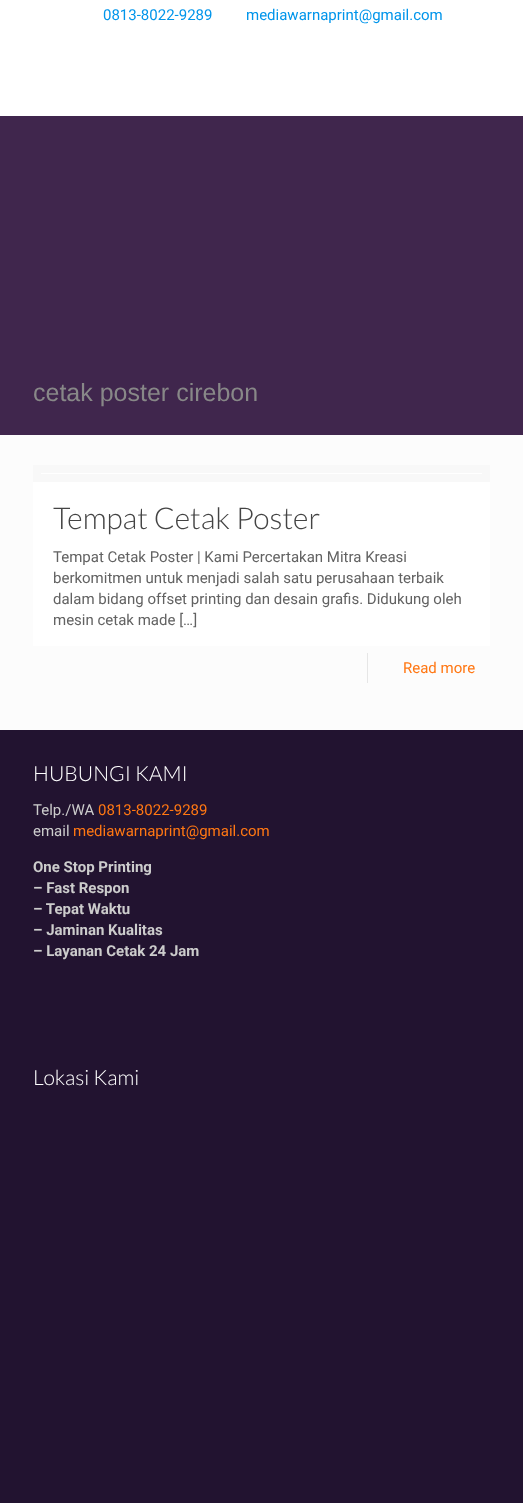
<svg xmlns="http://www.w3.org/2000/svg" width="523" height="1503">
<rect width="100%" height="100%" fill="#fcfcfc"/>
<rect y="116" width="523" height="319" fill="#40264d"/>
<rect width="523" height="116" fill="#fff"/>
<text x="103" y="20" style="font-family:Roboto;font-size:15px;fill:#0095eb">0813-8022-9289</text>
<text x="246" y="20" style="font-family:Roboto;font-size:15px;fill:#0095eb">mediawarnaprint@gmail.com</text>
<text x="33" y="401" style="font-family:Liberation Sans;font-size:25px;fill:#888">cetak poster cirebon</text>
<rect x="33" y="473" width="457" height="173" fill="#fff"/>
<rect x="37" y="469" width="449" height="9" fill="none" stroke="#f8f8f8" stroke-width="8"/>
<text x="53" y="529" style="font-family:Lato;font-size:30px;font-weight:300;fill:#444">Tempat Cetak Poster</text>
<text x="53" y="562" style="font-family:Roboto;font-size:15px;fill:#626262">Tempat Cetak Poster | Kami Percertakan Mitra Kreasi</text>
<text x="53" y="583" style="font-family:Roboto;font-size:15px;fill:#626262">berkomitmen untuk menjadi salah satu perusahaan terbaik</text>
<text x="53" y="604" style="font-family:Roboto;font-size:15px;fill:#626262">dalam bidang offset printing dan desain grafis. Didukung oleh</text>
<text x="53" y="625" style="font-family:Roboto;font-size:15px;fill:#626262">mesin cetak made […]</text>
<rect x="367" y="653" width="1" height="30" fill="#e6e6e6"/>
<text x="403" y="673" style="font-family:Roboto;font-size:15px;fill:#ff7713">Read more</text>
<rect y="730" width="523" height="773" fill="#221330"/>
<text x="33" y="781" style="font-family:Lato;font-size:21px;font-weight:300;fill:#fff">HUBUNGI KAMI</text>
<text x="33" y="815" style="font-family:Roboto;font-size:15px;fill:#ccc">Telp./WA</text>
<text x="98" y="815" style="font-family:Roboto;font-size:15px;fill:#ff7713">0813-8022-9289</text>
<text x="33" y="836" style="font-family:Roboto;font-size:15px;fill:#ccc">email</text>
<text x="73" y="836" style="font-family:Roboto;font-size:15px;fill:#ff7713">mediawarnaprint@gmail.com</text>
<text x="33" y="872" style="font-family:Roboto;font-size:15px;font-weight:bold;fill:#ccc">One Stop Printing</text>
<text x="33" y="893" style="font-family:Roboto;font-size:15px;font-weight:bold;fill:#ccc">– Fast Respon</text>
<text x="33" y="914" style="font-family:Roboto;font-size:15px;font-weight:bold;fill:#ccc">– Tepat Waktu</text>
<text x="33" y="935" style="font-family:Roboto;font-size:15px;font-weight:bold;fill:#ccc">– Jaminan Kualitas</text>
<text x="33" y="956" style="font-family:Roboto;font-size:15px;font-weight:bold;fill:#ccc">– Layanan Cetak 24 Jam</text>
<text x="33" y="1085" style="font-family:Lato;font-size:21px;font-weight:300;fill:#fff">Lokasi Kami</text>
</svg>
